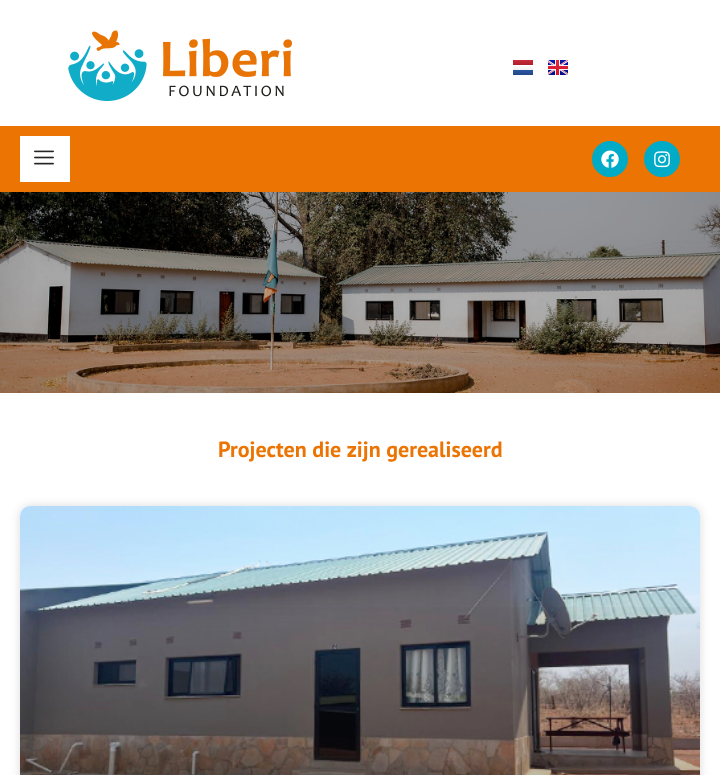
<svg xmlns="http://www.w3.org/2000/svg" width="720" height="775">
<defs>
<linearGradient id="g1" gradientUnits="userSpaceOnUse" x1="523" y1="60" x2="523" y2="65"><stop offset="0" stop-color="#ca2b39"/><stop offset="1" stop-color="#ac1f2c"/></linearGradient>
<linearGradient id="g2" gradientUnits="userSpaceOnUse" x1="523" y1="65" x2="523" y2="70"><stop offset="0" stop-color="#fff"/><stop offset="1" stop-color="#f0f0f0"/></linearGradient>
<linearGradient id="g3" gradientUnits="userSpaceOnUse" x1="523" y1="70" x2="523" y2="75"><stop offset="0" stop-color="#2c56a2"/><stop offset="1" stop-color="#244889"/></linearGradient>
<linearGradient id="g4" gradientUnits="userSpaceOnUse" x1="360" y1="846" x2="360" y2="506"><stop offset="0" stop-color="#000" stop-opacity="0.35"/><stop offset="0.75" stop-color="#000" stop-opacity="0"/></linearGradient>
</defs>
<rect width="100%" height="100%" fill="#fff"/>
<image x="68" y="30" width="224" height="71" href="media/1.png"/>
<rect x="513" y="60" width="20" height="5" fill="url(#g1)"/>
<rect x="513" y="66" width="20" height="4" fill="url(#g2)"/>
<rect x="513" y="70" width="20" height="5" fill="url(#g3)"/>
<image x="548" y="60" width="20" height="15" href="media/2.png"/>
<rect y="126" width="720" height="66" fill="#eb7403"/>
<rect x="20" y="136" width="50" height="46" fill="#fff"/>
<image x="34" y="150" width="20" height="15" href="media/3.png"/>
<circle cx="610" cy="159" r="16.5" fill="#00abc8" stroke="#00abc8" stroke-width="3"/>
<image x="601" y="150" width="18" height="18" href="media/4.png"/>
<circle cx="662" cy="159" r="16.5" fill="#00abc8" stroke="#00abc8" stroke-width="3"/>
<image x="654" y="151" width="16" height="17" href="media/5.png"/>
<image x="0" y="192" width="720" height="201" href="media/6.png"/>
<text x="218" y="457" style="font-family:PT Sans;font-size:22px;font-weight:bold;fill:#eb7403">Projecten die zijn gerealiseerd</text>
<rect x="20" y="506" width="680" height="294" rx="10" fill="#00000026" filter="blur(5px)"/>
<rect x="20" y="506" width="680" height="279" rx="10" fill="#fff"/>
<image x="20" y="506" width="680" height="269" href="media/7.png"/>
<rect x="20" y="607" width="680" height="168" fill="url(#g4)"/>
</svg>
